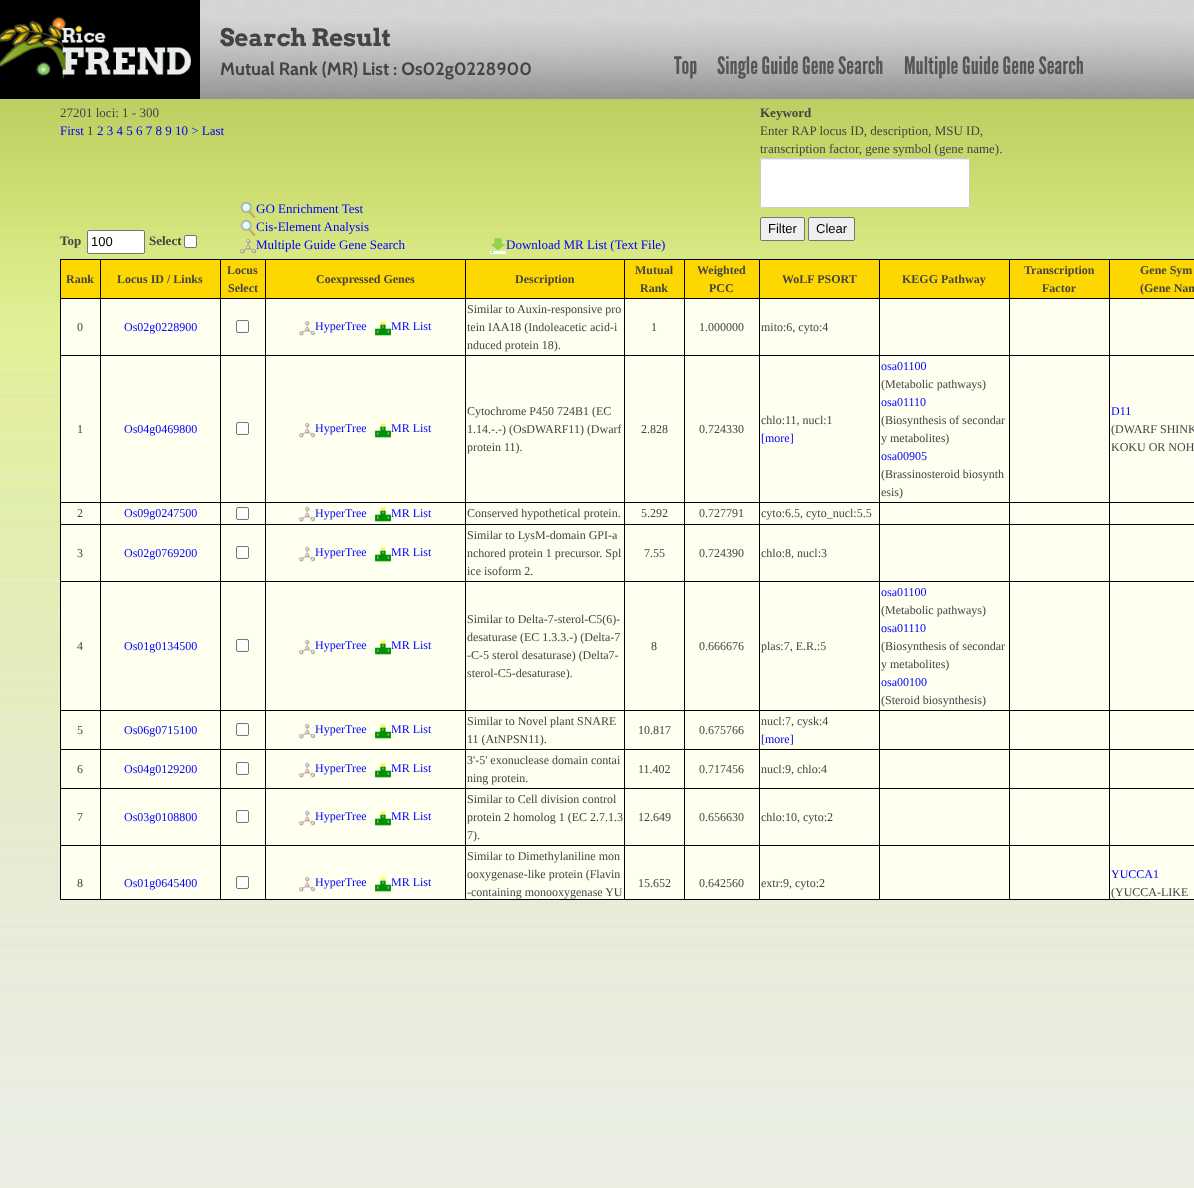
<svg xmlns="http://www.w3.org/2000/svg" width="1194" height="1188">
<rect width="100%" height="100%" fill="#fff"/>
<image x="0" y="99" width="1194" height="1089" href="media/1.png"/>
<image x="200" y="0" width="994" height="99" href="media/2.png"/>
<image x="0" y="0" width="200" height="99" href="media/3.png"/>
<text x="220" y="46" style="font-family:Arvo;font-size:24px;font-weight:bold;fill:#444">Search Result</text>
<text x="220" y="75" style="font-family:Cabin;font-size:18px;font-weight:bold;fill:#444">Mutual Rank (MR) List : Os02g0228900</text>
<text x="674" y="74" style="font-family:League Gothic;font-size:24px;fill:#555">Top</text>
<text x="717" y="74" style="font-family:League Gothic;font-size:24px;fill:#555">Single Guide Gene Search</text>
<text x="904" y="74" style="font-family:League Gothic;font-size:24px;fill:#555">Multiple Guide Gene Search</text>
<text x="60" y="117" style="font-family:Liberation Serif;font-size:13px;fill:#444">27201 loci: 1 - 300</text>
<text x="60" y="135" style="font-family:Liberation Serif;font-size:13px;fill:#00f">First</text>
<text x="87" y="135" style="font-family:Liberation Serif;font-size:13px;fill:#444">1</text>
<text x="97" y="135" style="font-family:Liberation Serif;font-size:13px;fill:#00f">2 3 4 5 6 7 8 9 10 &gt; Last</text>
<text x="60" y="245" style="font-family:Liberation Serif;font-size:13px;font-weight:bold;fill:#444">Top</text>
<rect x="87.5" y="230.5" width="57" height="23" rx="1.5" fill="#fff" stroke="#767676"/>
<text x="91" y="246" style="font-family:Liberation Sans;font-size:13px;fill:#000">100</text>
<text x="149" y="245" style="font-family:Liberation Serif;font-size:13px;font-weight:bold;fill:#444">Select</text>
<rect x="184.5" y="235.5" width="12" height="12" rx="1.5" fill="#fff" stroke="#767676"/>
<image x="240" y="202" width="16" height="16" href="media/4.png"/>
<text x="256" y="213" style="font-family:Liberation Serif;font-size:13px;fill:#00f">GO Enrichment Test</text>
<image x="240" y="220" width="16" height="16" href="media/5.png"/>
<text x="256" y="231" style="font-family:Liberation Serif;font-size:13px;fill:#00f">Cis-Element Analysis</text>
<image x="240" y="238" width="16" height="16" href="media/6.png"/>
<text x="256" y="249" style="font-family:Liberation Serif;font-size:13px;fill:#00f">Multiple Guide Gene Search</text>
<image x="490" y="238" width="16" height="16" href="media/7.png"/>
<text x="506" y="249" style="font-family:Liberation Serif;font-size:13px;fill:#00f">Download MR List (Text File)</text>
<text x="760" y="117" style="font-family:Liberation Serif;font-size:13px;font-weight:bold;fill:#444">Keyword</text>
<text x="760" y="135" style="font-family:Liberation Serif;font-size:13px;fill:#444">Enter RAP locus ID, description, MSU ID,</text>
<text x="760" y="153" style="font-family:Liberation Serif;font-size:13px;fill:#444">transcription factor, gene symbol (gene name).</text>
<rect x="760" y="158" width="210" height="50" rx="3" fill="#fff"/>
<path d="M763 160h204l2 1v1c0-1 0-3-2-3h-204c-2 0-2 2-2 3c0-1 1-2 2-2z" fill="#ececec"/>
<rect x="760.5" y="158.5" width="209" height="49" rx="2.5" fill="none" stroke="#ccc"/>
<rect x="760.5" y="217.5" width="44" height="23" rx="1.5" fill="#efefef" stroke="#767676"/>
<text x="768" y="233" style="font-family:Liberation Sans;font-size:13px;fill:#000">Filter</text>
<rect x="808.5" y="217.5" width="46" height="23" rx="1.5" fill="#efefef" stroke="#767676"/>
<text x="816" y="233" style="font-family:Liberation Sans;font-size:13px;fill:#000">Clear</text>
<rect x="61" y="260" width="1133" height="38" fill="#ffd700"/>
<rect x="60" y="259" width="1134" height="1" fill="#000"/>
<rect x="60" y="298" width="1134" height="1" fill="#000"/>
<rect x="60" y="259" width="1" height="40" fill="#000"/>
<text x="66" y="283" style="font-family:Liberation Serif;font-size:12px;font-weight:bold;fill:#444">Rank</text>
<rect x="100" y="259" width="1" height="40" fill="#000"/>
<text x="117" y="283" style="font-family:Liberation Serif;font-size:12px;font-weight:bold;fill:#444">Locus ID / Links</text>
<rect x="220" y="259" width="1" height="40" fill="#000"/>
<text x="227" y="274" style="font-family:Liberation Serif;font-size:12px;font-weight:bold;fill:#444">Locus</text>
<text x="228" y="292" style="font-family:Liberation Serif;font-size:12px;font-weight:bold;fill:#444">Select</text>
<rect x="265" y="259" width="1" height="40" fill="#000"/>
<text x="316" y="283" style="font-family:Liberation Serif;font-size:12px;font-weight:bold;fill:#444">Coexpressed Genes</text>
<rect x="465" y="259" width="1" height="40" fill="#000"/>
<text x="515" y="283" style="font-family:Liberation Serif;font-size:12px;font-weight:bold;fill:#444">Description</text>
<rect x="624" y="259" width="1" height="40" fill="#000"/>
<text x="635" y="274" style="font-family:Liberation Serif;font-size:12px;font-weight:bold;fill:#444">Mutual</text>
<text x="640" y="292" style="font-family:Liberation Serif;font-size:12px;font-weight:bold;fill:#444">Rank</text>
<rect x="684" y="259" width="1" height="40" fill="#000"/>
<text x="697" y="274" style="font-family:Liberation Serif;font-size:12px;font-weight:bold;fill:#444">Weighted</text>
<text x="709" y="292" style="font-family:Liberation Serif;font-size:12px;font-weight:bold;fill:#444">PCC</text>
<rect x="759" y="259" width="1" height="40" fill="#000"/>
<text x="782" y="283" style="font-family:Liberation Serif;font-size:12px;font-weight:bold;fill:#444">WoLF PSORT</text>
<rect x="879" y="259" width="1" height="40" fill="#000"/>
<text x="902" y="283" style="font-family:Liberation Serif;font-size:12px;font-weight:bold;fill:#444">KEGG Pathway</text>
<rect x="1009" y="259" width="1" height="40" fill="#000"/>
<text x="1024" y="274" style="font-family:Liberation Serif;font-size:12px;font-weight:bold;fill:#444">Transcription</text>
<text x="1042" y="292" style="font-family:Liberation Serif;font-size:12px;font-weight:bold;fill:#444">Factor</text>
<rect x="1109" y="259" width="1" height="40" fill="#000"/>
<text x="1140" y="274" style="font-family:Liberation Serif;font-size:12px;font-weight:bold;fill:#444">Gene Sym</text>
<text x="1140" y="292" style="font-family:Liberation Serif;font-size:12px;font-weight:bold;fill:#444">(Gene Nam</text>
<rect x="60" y="899" width="1134" height="1" fill="#000"/>
<rect x="61" y="299" width="1133" height="600" fill="#fffff0"/>
<rect x="1109" y="845" width="1" height="54" fill="#000"/>
<rect x="1109" y="845" width="85" height="1" fill="#000"/>
<rect x="1109" y="788" width="1" height="58" fill="#000"/>
<rect x="1109" y="788" width="85" height="1" fill="#000"/>
<rect x="1109" y="749" width="1" height="40" fill="#000"/>
<rect x="1109" y="749" width="85" height="1" fill="#000"/>
<rect x="1109" y="710" width="1" height="40" fill="#000"/>
<rect x="1109" y="710" width="85" height="1" fill="#000"/>
<rect x="1109" y="581" width="1" height="130" fill="#000"/>
<rect x="1109" y="581" width="85" height="1" fill="#000"/>
<rect x="1109" y="524" width="1" height="58" fill="#000"/>
<rect x="1109" y="524" width="85" height="1" fill="#000"/>
<rect x="1109" y="502" width="1" height="23" fill="#000"/>
<rect x="1109" y="502" width="85" height="1" fill="#000"/>
<rect x="1109" y="355" width="1" height="148" fill="#000"/>
<rect x="1109" y="355" width="85" height="1" fill="#000"/>
<rect x="1109" y="299" width="1" height="57" fill="#000"/>
<rect x="1009" y="845" width="1" height="54" fill="#000"/>
<rect x="1009" y="845" width="101" height="1" fill="#000"/>
<rect x="1009" y="788" width="1" height="58" fill="#000"/>
<rect x="1009" y="788" width="101" height="1" fill="#000"/>
<rect x="1009" y="749" width="1" height="40" fill="#000"/>
<rect x="1009" y="749" width="101" height="1" fill="#000"/>
<rect x="1009" y="710" width="1" height="40" fill="#000"/>
<rect x="1009" y="710" width="101" height="1" fill="#000"/>
<rect x="1009" y="581" width="1" height="130" fill="#000"/>
<rect x="1009" y="581" width="101" height="1" fill="#000"/>
<rect x="1009" y="524" width="1" height="58" fill="#000"/>
<rect x="1009" y="524" width="101" height="1" fill="#000"/>
<rect x="1009" y="502" width="1" height="23" fill="#000"/>
<rect x="1009" y="502" width="101" height="1" fill="#000"/>
<rect x="1009" y="355" width="1" height="148" fill="#000"/>
<rect x="1009" y="355" width="101" height="1" fill="#000"/>
<rect x="1009" y="299" width="1" height="57" fill="#000"/>
<rect x="879" y="845" width="1" height="54" fill="#000"/>
<rect x="879" y="845" width="131" height="1" fill="#000"/>
<rect x="879" y="788" width="1" height="58" fill="#000"/>
<rect x="879" y="788" width="131" height="1" fill="#000"/>
<rect x="879" y="749" width="1" height="40" fill="#000"/>
<rect x="879" y="749" width="131" height="1" fill="#000"/>
<rect x="879" y="710" width="1" height="40" fill="#000"/>
<rect x="879" y="710" width="131" height="1" fill="#000"/>
<rect x="879" y="581" width="1" height="130" fill="#000"/>
<rect x="879" y="581" width="131" height="1" fill="#000"/>
<rect x="879" y="524" width="1" height="58" fill="#000"/>
<rect x="879" y="524" width="131" height="1" fill="#000"/>
<rect x="879" y="502" width="1" height="23" fill="#000"/>
<rect x="879" y="502" width="131" height="1" fill="#000"/>
<rect x="879" y="355" width="1" height="148" fill="#000"/>
<rect x="879" y="355" width="131" height="1" fill="#000"/>
<rect x="879" y="299" width="1" height="57" fill="#000"/>
<rect x="759" y="845" width="1" height="54" fill="#000"/>
<rect x="759" y="845" width="121" height="1" fill="#000"/>
<rect x="759" y="788" width="1" height="58" fill="#000"/>
<rect x="759" y="788" width="121" height="1" fill="#000"/>
<rect x="759" y="749" width="1" height="40" fill="#000"/>
<rect x="759" y="749" width="121" height="1" fill="#000"/>
<rect x="759" y="710" width="1" height="40" fill="#000"/>
<rect x="759" y="710" width="121" height="1" fill="#000"/>
<rect x="759" y="581" width="1" height="130" fill="#000"/>
<rect x="759" y="581" width="121" height="1" fill="#000"/>
<rect x="759" y="524" width="1" height="58" fill="#000"/>
<rect x="759" y="524" width="121" height="1" fill="#000"/>
<rect x="759" y="502" width="1" height="23" fill="#000"/>
<rect x="759" y="502" width="121" height="1" fill="#000"/>
<rect x="759" y="355" width="1" height="148" fill="#000"/>
<rect x="759" y="355" width="121" height="1" fill="#000"/>
<rect x="759" y="299" width="1" height="57" fill="#000"/>
<rect x="684" y="845" width="1" height="54" fill="#000"/>
<rect x="684" y="845" width="76" height="1" fill="#000"/>
<rect x="684" y="788" width="1" height="58" fill="#000"/>
<rect x="684" y="788" width="76" height="1" fill="#000"/>
<rect x="684" y="749" width="1" height="40" fill="#000"/>
<rect x="684" y="749" width="76" height="1" fill="#000"/>
<rect x="684" y="710" width="1" height="40" fill="#000"/>
<rect x="684" y="710" width="76" height="1" fill="#000"/>
<rect x="684" y="581" width="1" height="130" fill="#000"/>
<rect x="684" y="581" width="76" height="1" fill="#000"/>
<rect x="684" y="524" width="1" height="58" fill="#000"/>
<rect x="684" y="524" width="76" height="1" fill="#000"/>
<rect x="684" y="502" width="1" height="23" fill="#000"/>
<rect x="684" y="502" width="76" height="1" fill="#000"/>
<rect x="684" y="355" width="1" height="148" fill="#000"/>
<rect x="684" y="355" width="76" height="1" fill="#000"/>
<rect x="684" y="299" width="1" height="57" fill="#000"/>
<rect x="624" y="845" width="1" height="54" fill="#000"/>
<rect x="624" y="845" width="61" height="1" fill="#000"/>
<rect x="624" y="788" width="1" height="58" fill="#000"/>
<rect x="624" y="788" width="61" height="1" fill="#000"/>
<rect x="624" y="749" width="1" height="40" fill="#000"/>
<rect x="624" y="749" width="61" height="1" fill="#000"/>
<rect x="624" y="710" width="1" height="40" fill="#000"/>
<rect x="624" y="710" width="61" height="1" fill="#000"/>
<rect x="624" y="581" width="1" height="130" fill="#000"/>
<rect x="624" y="581" width="61" height="1" fill="#000"/>
<rect x="624" y="524" width="1" height="58" fill="#000"/>
<rect x="624" y="524" width="61" height="1" fill="#000"/>
<rect x="624" y="502" width="1" height="23" fill="#000"/>
<rect x="624" y="502" width="61" height="1" fill="#000"/>
<rect x="624" y="355" width="1" height="148" fill="#000"/>
<rect x="624" y="355" width="61" height="1" fill="#000"/>
<rect x="624" y="299" width="1" height="57" fill="#000"/>
<rect x="465" y="845" width="1" height="54" fill="#000"/>
<rect x="465" y="845" width="160" height="1" fill="#000"/>
<rect x="465" y="788" width="1" height="58" fill="#000"/>
<rect x="465" y="788" width="160" height="1" fill="#000"/>
<rect x="465" y="749" width="1" height="40" fill="#000"/>
<rect x="465" y="749" width="160" height="1" fill="#000"/>
<rect x="465" y="710" width="1" height="40" fill="#000"/>
<rect x="465" y="710" width="160" height="1" fill="#000"/>
<rect x="465" y="581" width="1" height="130" fill="#000"/>
<rect x="465" y="581" width="160" height="1" fill="#000"/>
<rect x="465" y="524" width="1" height="58" fill="#000"/>
<rect x="465" y="524" width="160" height="1" fill="#000"/>
<rect x="465" y="502" width="1" height="23" fill="#000"/>
<rect x="465" y="502" width="160" height="1" fill="#000"/>
<rect x="465" y="355" width="1" height="148" fill="#000"/>
<rect x="465" y="355" width="160" height="1" fill="#000"/>
<rect x="465" y="299" width="1" height="57" fill="#000"/>
<rect x="265" y="845" width="1" height="54" fill="#000"/>
<rect x="265" y="845" width="201" height="1" fill="#000"/>
<rect x="265" y="788" width="1" height="58" fill="#000"/>
<rect x="265" y="788" width="201" height="1" fill="#000"/>
<rect x="265" y="749" width="1" height="40" fill="#000"/>
<rect x="265" y="749" width="201" height="1" fill="#000"/>
<rect x="265" y="710" width="1" height="40" fill="#000"/>
<rect x="265" y="710" width="201" height="1" fill="#000"/>
<rect x="265" y="581" width="1" height="130" fill="#000"/>
<rect x="265" y="581" width="201" height="1" fill="#000"/>
<rect x="265" y="524" width="1" height="58" fill="#000"/>
<rect x="265" y="524" width="201" height="1" fill="#000"/>
<rect x="265" y="502" width="1" height="23" fill="#000"/>
<rect x="265" y="502" width="201" height="1" fill="#000"/>
<rect x="265" y="355" width="1" height="148" fill="#000"/>
<rect x="265" y="355" width="201" height="1" fill="#000"/>
<rect x="265" y="299" width="1" height="57" fill="#000"/>
<rect x="220" y="845" width="1" height="54" fill="#000"/>
<rect x="220" y="845" width="46" height="1" fill="#000"/>
<rect x="220" y="788" width="1" height="58" fill="#000"/>
<rect x="220" y="788" width="46" height="1" fill="#000"/>
<rect x="220" y="749" width="1" height="40" fill="#000"/>
<rect x="220" y="749" width="46" height="1" fill="#000"/>
<rect x="220" y="710" width="1" height="40" fill="#000"/>
<rect x="220" y="710" width="46" height="1" fill="#000"/>
<rect x="220" y="581" width="1" height="130" fill="#000"/>
<rect x="220" y="581" width="46" height="1" fill="#000"/>
<rect x="220" y="524" width="1" height="58" fill="#000"/>
<rect x="220" y="524" width="46" height="1" fill="#000"/>
<rect x="220" y="502" width="1" height="23" fill="#000"/>
<rect x="220" y="502" width="46" height="1" fill="#000"/>
<rect x="220" y="355" width="1" height="148" fill="#000"/>
<rect x="220" y="355" width="46" height="1" fill="#000"/>
<rect x="220" y="299" width="1" height="57" fill="#000"/>
<rect x="100" y="845" width="1" height="54" fill="#000"/>
<rect x="100" y="845" width="121" height="1" fill="#000"/>
<rect x="100" y="788" width="1" height="58" fill="#000"/>
<rect x="100" y="788" width="121" height="1" fill="#000"/>
<rect x="100" y="749" width="1" height="40" fill="#000"/>
<rect x="100" y="749" width="121" height="1" fill="#000"/>
<rect x="100" y="710" width="1" height="40" fill="#000"/>
<rect x="100" y="710" width="121" height="1" fill="#000"/>
<rect x="100" y="581" width="1" height="130" fill="#000"/>
<rect x="100" y="581" width="121" height="1" fill="#000"/>
<rect x="100" y="524" width="1" height="58" fill="#000"/>
<rect x="100" y="524" width="121" height="1" fill="#000"/>
<rect x="100" y="502" width="1" height="23" fill="#000"/>
<rect x="100" y="502" width="121" height="1" fill="#000"/>
<rect x="100" y="355" width="1" height="148" fill="#000"/>
<rect x="100" y="355" width="121" height="1" fill="#000"/>
<rect x="100" y="299" width="1" height="57" fill="#000"/>
<rect x="60" y="845" width="1" height="54" fill="#000"/>
<rect x="60" y="845" width="41" height="1" fill="#000"/>
<rect x="60" y="788" width="1" height="58" fill="#000"/>
<rect x="60" y="788" width="41" height="1" fill="#000"/>
<rect x="60" y="749" width="1" height="40" fill="#000"/>
<rect x="60" y="749" width="41" height="1" fill="#000"/>
<rect x="60" y="710" width="1" height="40" fill="#000"/>
<rect x="60" y="710" width="41" height="1" fill="#000"/>
<rect x="60" y="581" width="1" height="130" fill="#000"/>
<rect x="60" y="581" width="41" height="1" fill="#000"/>
<rect x="60" y="524" width="1" height="58" fill="#000"/>
<rect x="60" y="524" width="41" height="1" fill="#000"/>
<rect x="60" y="502" width="1" height="23" fill="#000"/>
<rect x="60" y="502" width="41" height="1" fill="#000"/>
<rect x="60" y="355" width="1" height="148" fill="#000"/>
<rect x="60" y="355" width="41" height="1" fill="#000"/>
<rect x="60" y="299" width="1" height="57" fill="#000"/>
<text x="77" y="331" style="font-family:Liberation Serif;font-size:12px;fill:#444">0</text>
<text x="124" y="331" style="font-family:Liberation Serif;font-size:12px;fill:#00f">Os02g0228900</text>
<rect x="236.5" y="320.5" width="12" height="12" rx="1.5" fill="#fff" stroke="#767676"/>
<image x="299" y="320" width="16" height="16" href="media/8.png"/>
<text x="315" y="330" style="font-family:Liberation Serif;font-size:12px;fill:#00f">HyperTree</text>
<image x="375" y="320" width="16" height="16" href="media/9.png"/>
<text x="391" y="330" style="font-family:Liberation Serif;font-size:12px;fill:#00f">MR List</text>
<text x="467" y="313" style="font-family:Liberation Serif;font-size:12px;fill:#444">Similar to Auxin-responsive pro</text>
<text x="467" y="331" style="font-family:Liberation Serif;font-size:12px;fill:#444">tein IAA18 (Indoleacetic acid-i</text>
<text x="467" y="349" style="font-family:Liberation Serif;font-size:12px;fill:#444">nduced protein 18).</text>
<text x="651" y="331" style="font-family:Liberation Serif;font-size:12px;fill:#444">1</text>
<text x="699" y="331" style="font-family:Liberation Serif;font-size:12px;fill:#444">1.000000</text>
<text x="761" y="331" style="font-family:Liberation Serif;font-size:12px;fill:#444">mito:6, cyto:4</text>
<text x="77" y="433" style="font-family:Liberation Serif;font-size:12px;fill:#444">1</text>
<text x="124" y="433" style="font-family:Liberation Serif;font-size:12px;fill:#00f">Os04g0469800</text>
<rect x="236.5" y="422.5" width="12" height="12" rx="1.5" fill="#fff" stroke="#767676"/>
<image x="299" y="422" width="16" height="16" href="media/8.png"/>
<text x="315" y="432" style="font-family:Liberation Serif;font-size:12px;fill:#00f">HyperTree</text>
<image x="375" y="422" width="16" height="16" href="media/9.png"/>
<text x="391" y="432" style="font-family:Liberation Serif;font-size:12px;fill:#00f">MR List</text>
<text x="467" y="415" style="font-family:Liberation Serif;font-size:12px;fill:#444">Cytochrome P450 724B1 (EC</text>
<text x="467" y="433" style="font-family:Liberation Serif;font-size:12px;fill:#444">1.14.-.-) (OsDWARF11) (Dwarf</text>
<text x="467" y="451" style="font-family:Liberation Serif;font-size:12px;fill:#444">protein 11).</text>
<text x="641" y="433" style="font-family:Liberation Serif;font-size:12px;fill:#444">2.828</text>
<text x="699" y="433" style="font-family:Liberation Serif;font-size:12px;fill:#444">0.724330</text>
<text x="761" y="424" style="font-family:Liberation Serif;font-size:12px;fill:#444">chlo:11, nucl:1</text>
<text x="761" y="442" style="font-family:Liberation Serif;font-size:12px;fill:#00f">[more]</text>
<text x="881" y="370" style="font-family:Liberation Serif;font-size:12px;fill:#00f">osa01100</text>
<text x="881" y="388" style="font-family:Liberation Serif;font-size:12px;fill:#444">(Metabolic pathways)</text>
<text x="881" y="406" style="font-family:Liberation Serif;font-size:12px;fill:#00f">osa01110</text>
<text x="881" y="424" style="font-family:Liberation Serif;font-size:12px;fill:#444">(Biosynthesis of secondar</text>
<text x="881" y="442" style="font-family:Liberation Serif;font-size:12px;fill:#444">y metabolites)</text>
<text x="881" y="460" style="font-family:Liberation Serif;font-size:12px;fill:#00f">osa00905</text>
<text x="881" y="478" style="font-family:Liberation Serif;font-size:12px;fill:#444">(Brassinosteroid biosynth</text>
<text x="881" y="496" style="font-family:Liberation Serif;font-size:12px;fill:#444">esis)</text>
<text x="1111" y="415" style="font-family:Liberation Serif;font-size:12px;fill:#00f">D11</text>
<text x="1111" y="433" style="font-family:Liberation Serif;font-size:12px;fill:#444">(DWARF SHINK</text>
<text x="1111" y="451" style="font-family:Liberation Serif;font-size:12px;fill:#444">KOKU OR NOH</text>
<text x="77" y="517" style="font-family:Liberation Serif;font-size:12px;fill:#444">2</text>
<text x="124" y="517" style="font-family:Liberation Serif;font-size:12px;fill:#00f">Os09g0247500</text>
<rect x="236.5" y="507.5" width="12" height="12" rx="1.5" fill="#fff" stroke="#767676"/>
<image x="299" y="506" width="16" height="16" href="media/8.png"/>
<text x="315" y="517" style="font-family:Liberation Serif;font-size:12px;fill:#00f">HyperTree</text>
<image x="375" y="506" width="16" height="16" href="media/9.png"/>
<text x="391" y="517" style="font-family:Liberation Serif;font-size:12px;fill:#00f">MR List</text>
<text x="467" y="517" style="font-family:Liberation Serif;font-size:12px;fill:#444">Conserved hypothetical protein.</text>
<text x="641" y="517" style="font-family:Liberation Serif;font-size:12px;fill:#444">5.292</text>
<text x="699" y="517" style="font-family:Liberation Serif;font-size:12px;fill:#444">0.727791</text>
<text x="761" y="517" style="font-family:Liberation Serif;font-size:12px;fill:#444">cyto:6.5, cyto_nucl:5.5</text>
<text x="77" y="557" style="font-family:Liberation Serif;font-size:12px;fill:#444">3</text>
<text x="124" y="557" style="font-family:Liberation Serif;font-size:12px;fill:#00f">Os02g0769200</text>
<rect x="236.5" y="546.5" width="12" height="12" rx="1.5" fill="#fff" stroke="#767676"/>
<image x="299" y="546" width="16" height="16" href="media/8.png"/>
<text x="315" y="556" style="font-family:Liberation Serif;font-size:12px;fill:#00f">HyperTree</text>
<image x="375" y="546" width="16" height="16" href="media/9.png"/>
<text x="391" y="556" style="font-family:Liberation Serif;font-size:12px;fill:#00f">MR List</text>
<text x="467" y="539" style="font-family:Liberation Serif;font-size:12px;fill:#444">Similar to LysM-domain GPI-a</text>
<text x="467" y="557" style="font-family:Liberation Serif;font-size:12px;fill:#444">nchored protein 1 precursor. Spl</text>
<text x="467" y="575" style="font-family:Liberation Serif;font-size:12px;fill:#444">ice isoform 2.</text>
<text x="644" y="557" style="font-family:Liberation Serif;font-size:12px;fill:#444">7.55</text>
<text x="699" y="557" style="font-family:Liberation Serif;font-size:12px;fill:#444">0.724390</text>
<text x="761" y="557" style="font-family:Liberation Serif;font-size:12px;fill:#444">chlo:8, nucl:3</text>
<text x="77" y="650" style="font-family:Liberation Serif;font-size:12px;fill:#444">4</text>
<text x="124" y="650" style="font-family:Liberation Serif;font-size:12px;fill:#00f">Os01g0134500</text>
<rect x="236.5" y="639.5" width="12" height="12" rx="1.5" fill="#fff" stroke="#767676"/>
<image x="299" y="639" width="16" height="16" href="media/8.png"/>
<text x="315" y="649" style="font-family:Liberation Serif;font-size:12px;fill:#00f">HyperTree</text>
<image x="375" y="639" width="16" height="16" href="media/9.png"/>
<text x="391" y="649" style="font-family:Liberation Serif;font-size:12px;fill:#00f">MR List</text>
<text x="467" y="623" style="font-family:Liberation Serif;font-size:12px;fill:#444">Similar to Delta-7-sterol-C5(6)-</text>
<text x="467" y="641" style="font-family:Liberation Serif;font-size:12px;fill:#444">desaturase (EC 1.3.3.-) (Delta-7</text>
<text x="467" y="659" style="font-family:Liberation Serif;font-size:12px;fill:#444">-C-5 sterol desaturase) (Delta7-</text>
<text x="467" y="677" style="font-family:Liberation Serif;font-size:12px;fill:#444">sterol-C5-desaturase).</text>
<text x="651" y="650" style="font-family:Liberation Serif;font-size:12px;fill:#444">8</text>
<text x="699" y="650" style="font-family:Liberation Serif;font-size:12px;fill:#444">0.666676</text>
<text x="761" y="650" style="font-family:Liberation Serif;font-size:12px;fill:#444">plas:7, E.R.:5</text>
<text x="881" y="596" style="font-family:Liberation Serif;font-size:12px;fill:#00f">osa01100</text>
<text x="881" y="614" style="font-family:Liberation Serif;font-size:12px;fill:#444">(Metabolic pathways)</text>
<text x="881" y="632" style="font-family:Liberation Serif;font-size:12px;fill:#00f">osa01110</text>
<text x="881" y="650" style="font-family:Liberation Serif;font-size:12px;fill:#444">(Biosynthesis of secondar</text>
<text x="881" y="668" style="font-family:Liberation Serif;font-size:12px;fill:#444">y metabolites)</text>
<text x="881" y="686" style="font-family:Liberation Serif;font-size:12px;fill:#00f">osa00100</text>
<text x="881" y="704" style="font-family:Liberation Serif;font-size:12px;fill:#444">(Steroid biosynthesis)</text>
<text x="77" y="734" style="font-family:Liberation Serif;font-size:12px;fill:#444">5</text>
<text x="124" y="734" style="font-family:Liberation Serif;font-size:12px;fill:#00f">Os06g0715100</text>
<rect x="236.5" y="723.5" width="12" height="12" rx="1.5" fill="#fff" stroke="#767676"/>
<image x="299" y="723" width="16" height="16" href="media/8.png"/>
<text x="315" y="733" style="font-family:Liberation Serif;font-size:12px;fill:#00f">HyperTree</text>
<image x="375" y="723" width="16" height="16" href="media/9.png"/>
<text x="391" y="733" style="font-family:Liberation Serif;font-size:12px;fill:#00f">MR List</text>
<text x="467" y="725" style="font-family:Liberation Serif;font-size:12px;fill:#444">Similar to Novel plant SNARE</text>
<text x="467" y="743" style="font-family:Liberation Serif;font-size:12px;fill:#444">11 (AtNPSN11).</text>
<text x="638" y="734" style="font-family:Liberation Serif;font-size:12px;fill:#444">10.817</text>
<text x="699" y="734" style="font-family:Liberation Serif;font-size:12px;fill:#444">0.675766</text>
<text x="761" y="725" style="font-family:Liberation Serif;font-size:12px;fill:#444">nucl:7, cysk:4</text>
<text x="761" y="743" style="font-family:Liberation Serif;font-size:12px;fill:#00f">[more]</text>
<text x="77" y="773" style="font-family:Liberation Serif;font-size:12px;fill:#444">6</text>
<text x="124" y="773" style="font-family:Liberation Serif;font-size:12px;fill:#00f">Os04g0129200</text>
<rect x="236.5" y="762.5" width="12" height="12" rx="1.5" fill="#fff" stroke="#767676"/>
<image x="299" y="762" width="16" height="16" href="media/8.png"/>
<text x="315" y="772" style="font-family:Liberation Serif;font-size:12px;fill:#00f">HyperTree</text>
<image x="375" y="762" width="16" height="16" href="media/9.png"/>
<text x="391" y="772" style="font-family:Liberation Serif;font-size:12px;fill:#00f">MR List</text>
<text x="467" y="764" style="font-family:Liberation Serif;font-size:12px;fill:#444">3'-5' exonuclease domain contai</text>
<text x="467" y="782" style="font-family:Liberation Serif;font-size:12px;fill:#444">ning protein.</text>
<text x="638" y="773" style="font-family:Liberation Serif;font-size:12px;fill:#444">11.402</text>
<text x="699" y="773" style="font-family:Liberation Serif;font-size:12px;fill:#444">0.717456</text>
<text x="761" y="773" style="font-family:Liberation Serif;font-size:12px;fill:#444">nucl:9, chlo:4</text>
<text x="77" y="821" style="font-family:Liberation Serif;font-size:12px;fill:#444">7</text>
<text x="124" y="821" style="font-family:Liberation Serif;font-size:12px;fill:#00f">Os03g0108800</text>
<rect x="236.5" y="810.5" width="12" height="12" rx="1.5" fill="#fff" stroke="#767676"/>
<image x="299" y="810" width="16" height="16" href="media/8.png"/>
<text x="315" y="820" style="font-family:Liberation Serif;font-size:12px;fill:#00f">HyperTree</text>
<image x="375" y="810" width="16" height="16" href="media/9.png"/>
<text x="391" y="820" style="font-family:Liberation Serif;font-size:12px;fill:#00f">MR List</text>
<text x="467" y="803" style="font-family:Liberation Serif;font-size:12px;fill:#444">Similar to Cell division control</text>
<text x="467" y="821" style="font-family:Liberation Serif;font-size:12px;fill:#444">protein 2 homolog 1 (EC 2.7.1.3</text>
<text x="467" y="839" style="font-family:Liberation Serif;font-size:12px;fill:#444">7).</text>
<text x="638" y="821" style="font-family:Liberation Serif;font-size:12px;fill:#444">12.649</text>
<text x="699" y="821" style="font-family:Liberation Serif;font-size:12px;fill:#444">0.656630</text>
<text x="761" y="821" style="font-family:Liberation Serif;font-size:12px;fill:#444">chlo:10, cyto:2</text>
<text x="77" y="887" style="font-family:Liberation Serif;font-size:12px;fill:#444">8</text>
<text x="124" y="887" style="font-family:Liberation Serif;font-size:12px;fill:#00f">Os01g0645400</text>
<rect x="236.5" y="876.5" width="12" height="12" rx="1.5" fill="#fff" stroke="#767676"/>
<image x="299" y="876" width="16" height="16" href="media/8.png"/>
<text x="315" y="886" style="font-family:Liberation Serif;font-size:12px;fill:#00f">HyperTree</text>
<image x="375" y="876" width="16" height="16" href="media/9.png"/>
<text x="391" y="886" style="font-family:Liberation Serif;font-size:12px;fill:#00f">MR List</text>
<text x="467" y="860" style="font-family:Liberation Serif;font-size:12px;fill:#444">Similar to Dimethylaniline mon</text>
<text x="467" y="878" style="font-family:Liberation Serif;font-size:12px;fill:#444">ooxygenase-like protein (Flavin</text>
<text x="467" y="896" style="font-family:Liberation Serif;font-size:12px;fill:#444">-containing monooxygenase YU</text>
<text x="638" y="887" style="font-family:Liberation Serif;font-size:12px;fill:#444">15.652</text>
<text x="699" y="887" style="font-family:Liberation Serif;font-size:12px;fill:#444">0.642560</text>
<text x="761" y="887" style="font-family:Liberation Serif;font-size:12px;fill:#444">extr:9, cyto:2</text>
<text x="1111" y="878" style="font-family:Liberation Serif;font-size:12px;fill:#00f">YUCCA1</text>
<text x="1111" y="896" style="font-family:Liberation Serif;font-size:12px;fill:#444">(YUCCA-LIKE</text>
</svg>
